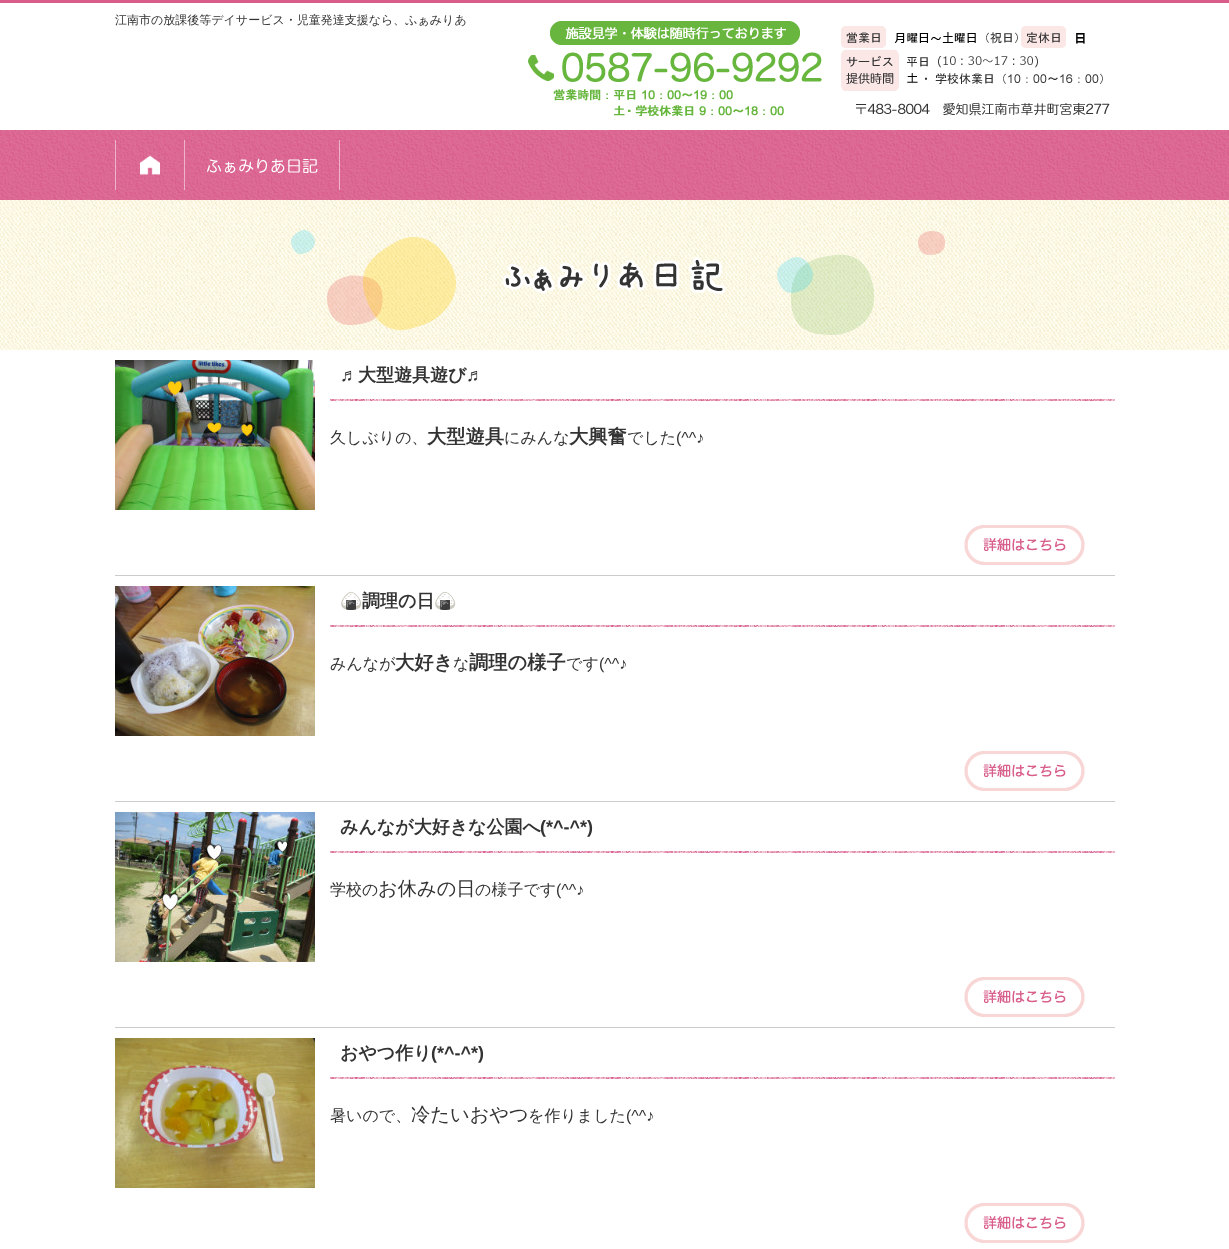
<svg xmlns="http://www.w3.org/2000/svg" width="1229" height="1249">
<rect width="100%" height="100%" fill="#fff"/>
<image x="0" y="0" width="1229" height="350" href="media/1.png"/>
<image x="528" y="21" width="582" height="95" href="media/2.png"/>
<text x="115" y="24" style="font-family:WenQuanYi Zen Hei;font-size:12px;font-weight:500;fill:#333">江南市の放課後等デイサービス・児童発達支援なら、ふぁみりあ</text>
<image x="115" y="140" width="70" height="50" href="media/3.png"/>
<image x="207" y="140" width="133" height="50" href="media/4.png"/>
<image x="291" y="230" width="654" height="105" href="media/5.png"/>
<rect x="115" y="575" width="1000" height="1" fill="#ccc"/>
<image x="115" y="360" width="200" height="150" href="media/6.png"/>
<image x="330" y="399" width="785" height="2" href="media/7.png"/>
<text x="340" y="381" style="font-family:Liberation Sans;font-size:18px;font-weight:bold;fill:#333">♬</text>
<text x="358" y="381" style="font-family:WenQuanYi Zen Hei;font-size:18px;font-weight:bold;fill:#333">大型遊具遊び</text>
<text x="466" y="381" style="font-family:Liberation Sans;font-size:18px;font-weight:bold;fill:#333">♬</text>
<text x="330" y="443" style="font-family:WenQuanYi Zen Hei;font-size:16px;font-weight:500;fill:#333">久しぶりの、</text>
<text x="427" y="443" style="font-family:WenQuanYi Zen Hei;font-size:19.25px;font-weight:bold;fill:#333">大型遊具</text>
<text x="504" y="443" style="font-family:WenQuanYi Zen Hei;font-size:16px;font-weight:500;fill:#333">にみんな</text>
<text x="569" y="443" style="font-family:WenQuanYi Zen Hei;font-size:19.25px;font-weight:bold;fill:#333">大興奮</text>
<text x="627" y="443" style="font-family:WenQuanYi Zen Hei;font-size:16px;font-weight:500;fill:#333">でした</text>
<text x="676" y="443" style="font-family:Liberation Sans;font-size:16px;fill:#333">(^^♪</text>
<image x="964" y="525" width="121" height="40" href="media/8.png"/>
<rect x="115" y="801" width="1000" height="1" fill="#ccc"/>
<image x="115" y="586" width="200" height="150" href="media/9.png"/>
<image x="330" y="625" width="785" height="2" href="media/7.png"/>
<text x="340" y="607" style="font-family:Noto Color Emoji;font-size:18px;font-weight:bold;fill:#333">🍙</text>
<text x="362" y="607" style="font-family:WenQuanYi Zen Hei;font-size:18px;font-weight:bold;fill:#333">調理の日</text>
<text x="434" y="607" style="font-family:Noto Color Emoji;font-size:18px;font-weight:bold;fill:#333">🍙</text>
<text x="330" y="669" style="font-family:WenQuanYi Zen Hei;font-size:16px;font-weight:500;fill:#333">みんなが</text>
<text x="395" y="669" style="font-family:WenQuanYi Zen Hei;font-size:19.25px;font-weight:bold;fill:#333">大好き</text>
<text x="453" y="669" style="font-family:WenQuanYi Zen Hei;font-size:16px;font-weight:500;fill:#333">な</text>
<text x="469" y="669" style="font-family:WenQuanYi Zen Hei;font-size:19.25px;font-weight:bold;fill:#333">調理の様子</text>
<text x="566" y="669" style="font-family:WenQuanYi Zen Hei;font-size:16px;font-weight:500;fill:#333">です</text>
<text x="599" y="669" style="font-family:Liberation Sans;font-size:16px;fill:#333">(^^♪</text>
<image x="964" y="751" width="121" height="40" href="media/8.png"/>
<rect x="115" y="1027" width="1000" height="1" fill="#ccc"/>
<image x="115" y="812" width="200" height="150" href="media/10.png"/>
<image x="330" y="851" width="785" height="2" href="media/7.png"/>
<text x="340" y="833" style="font-family:WenQuanYi Zen Hei;font-size:18px;font-weight:bold;fill:#333">みんなが大好きな公園へ</text>
<text x="540" y="833" style="font-family:Liberation Sans;font-size:18px;font-weight:bold;fill:#333">(*^-^*)</text>
<text x="330" y="895" style="font-family:WenQuanYi Zen Hei;font-size:16px;font-weight:500;fill:#333">学校の</text>
<text x="378" y="895" style="font-family:WenQuanYi Zen Hei;font-size:19.25px;font-weight:500;fill:#333">お休みの日</text>
<text x="475" y="895" style="font-family:WenQuanYi Zen Hei;font-size:16px;font-weight:500;fill:#333">の様子です</text>
<text x="556" y="895" style="font-family:Liberation Sans;font-size:16px;fill:#333">(^^♪</text>
<image x="964" y="977" width="121" height="40" href="media/8.png"/>
<image x="115" y="1038" width="200" height="150" href="media/11.png"/>
<image x="330" y="1077" width="785" height="2" href="media/7.png"/>
<text x="340" y="1059" style="font-family:WenQuanYi Zen Hei;font-size:18px;font-weight:bold;fill:#333">おやつ作り</text>
<text x="431" y="1059" style="font-family:Liberation Sans;font-size:18px;font-weight:bold;fill:#333">(*^-^*)</text>
<text x="330" y="1121" style="font-family:WenQuanYi Zen Hei;font-size:16px;font-weight:500;fill:#333">暑いので、</text>
<text x="411" y="1121" style="font-family:WenQuanYi Zen Hei;font-size:19.25px;font-weight:500;fill:#333">冷たいおやつ</text>
<text x="528" y="1121" style="font-family:WenQuanYi Zen Hei;font-size:16px;font-weight:500;fill:#333">を作りました</text>
<text x="626" y="1121" style="font-family:Liberation Sans;font-size:16px;fill:#333">(^^♪</text>
<image x="964" y="1203" width="121" height="40" href="media/8.png"/>
</svg>
